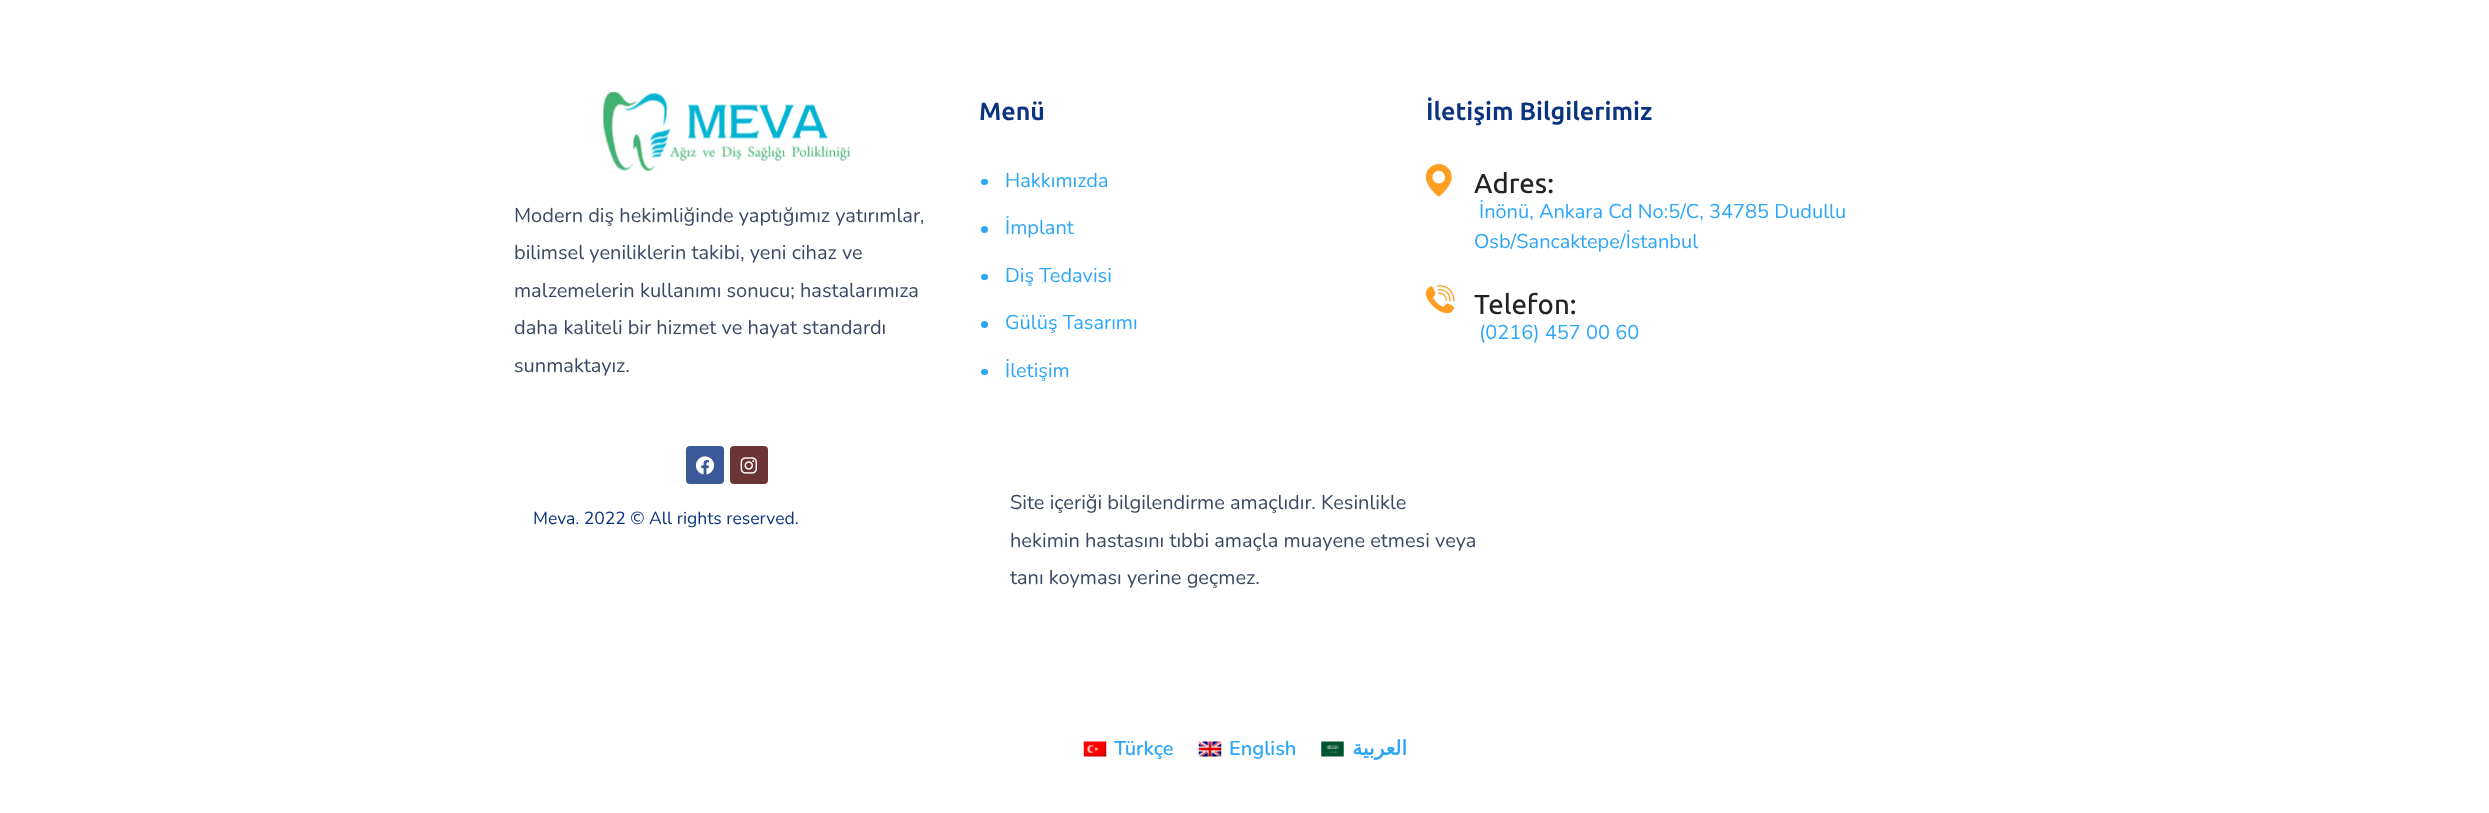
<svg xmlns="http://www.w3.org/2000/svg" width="2489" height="813">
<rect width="100%" height="100%" fill="#fff"/>
<image x="603" y="92" width="248" height="80" href="media/1.png"/>
<text x="514" y="222" style="font-family:Nunito;font-size:20px;fill:#3b4964">Modern diş hekimliğinde yaptığımız yatırımlar,</text>
<text x="514" y="259" style="font-family:Nunito;font-size:20px;fill:#3b4964">bilimsel yeniliklerin takibi, yeni cihaz ve</text>
<text x="514" y="297" style="font-family:Nunito;font-size:20px;fill:#3b4964">malzemelerin kullanımı sonucu; hastalarımıza</text>
<text x="514" y="334" style="font-family:Nunito;font-size:20px;fill:#3b4964">daha kaliteli bir hizmet ve hayat standardı</text>
<text x="514" y="372" style="font-family:Nunito;font-size:20px;fill:#3b4964">sunmaktayız.</text>
<rect x="686" y="446" width="38" height="38" rx="4" fill="#3b5998"/>
<image x="695" y="456" width="20" height="19" href="media/2.png"/>
<rect x="730" y="446" width="38" height="38" rx="4" fill="#6c3434"/>
<image x="740" y="457" width="17" height="17" href="media/3.png"/>
<text x="979" y="120" style="font-family:Ubuntu;font-size:25px;font-weight:bold;fill:#0a3380">Menü</text>
<rect x="981" y="179" width="7" height="6" rx="3" fill="#2ea6f7"/>
<text x="1005" y="187" style="font-family:Nunito;font-size:20px;fill:#2ea6f7">Hakkımızda</text>
<circle cx="984.5" cy="229.5" r="3.5" fill="#2ea6f7"/>
<text x="1005" y="234" style="font-family:Nunito;font-size:20px;fill:#2ea6f7">İmplant</text>
<rect x="981" y="274" width="7" height="6" rx="3" fill="#2ea6f7"/>
<text x="1005" y="282" style="font-family:Nunito;font-size:20px;fill:#2ea6f7">Diş Tedavisi</text>
<circle cx="984.5" cy="324.5" r="3.5" fill="#2ea6f7"/>
<text x="1005" y="329" style="font-family:Nunito;font-size:20px;fill:#2ea6f7">Gülüş Tasarımı</text>
<rect x="981" y="369" width="7" height="6" rx="3" fill="#2ea6f7"/>
<text x="1005" y="377" style="font-family:Nunito;font-size:20px;fill:#2ea6f7">İletişim</text>
<text x="1426" y="120" style="font-family:Ubuntu;font-size:25px;font-weight:bold;fill:#0a3380">İletişim Bilgilerimiz</text>
<image x="1425" y="164" width="27" height="33" href="media/4.png"/>
<text x="1474" y="193" style="font-family:Ubuntu;font-size:27.5px;font-weight:500;fill:#232323">Adres:</text>
<text x="1479" y="218" style="font-family:Nunito;font-size:20px;fill:#2ea6f7">İnönü, Ankara Cd No:5/C, 34785 Dudullu</text>
<text x="1474" y="248" style="font-family:Nunito;font-size:20px;fill:#2ea6f7">Osb/Sancaktepe/İstanbul</text>
<image x="1425" y="285" width="30" height="29" href="media/5.png"/>
<text x="1474" y="314" style="font-family:Ubuntu;font-size:27.5px;font-weight:500;fill:#232323">Telefon:</text>
<text x="1479" y="339" style="font-family:Nunito;font-size:20px;fill:#2ea6f7">(0216) 457 00 60</text>
<text x="533" y="524" style="font-family:Nunito;font-size:17.5px;fill:#0a3380">Meva. 2022 © All rights reserved.</text>
<text x="1010" y="509" style="font-family:Nunito;font-size:20px;fill:#3b4964">Site içeriği bilgilendirme amaçlıdır. Kesinlikle</text>
<text x="1010" y="547" style="font-family:Nunito;font-size:20px;fill:#3b4964">hekimin hastasını tıbbi amaçla muayene etmesi veya</text>
<text x="1010" y="584" style="font-family:Nunito;font-size:20px;fill:#3b4964">tanı koyması yerine geçmez.</text>
<image x="1083" y="741" width="24" height="16" href="media/6.png"/>
<text x="1114" y="755" style="font-family:Nunito;font-size:20px;font-weight:600;fill:#2ea6f7">Türkçe</text>
<image x="1198" y="741" width="24" height="16" href="media/7.png"/>
<text x="1229" y="755" style="font-family:Nunito;font-size:20px;font-weight:600;fill:#2ea6f7">English</text>
<image x="1321" y="741" width="23" height="16" href="media/8.png"/>
<text x="1407" y="755" style="font-family:DejaVu Sans;font-size:20px;font-weight:bold;direction:rtl;fill:#2ea6f7">العربية</text>
</svg>
